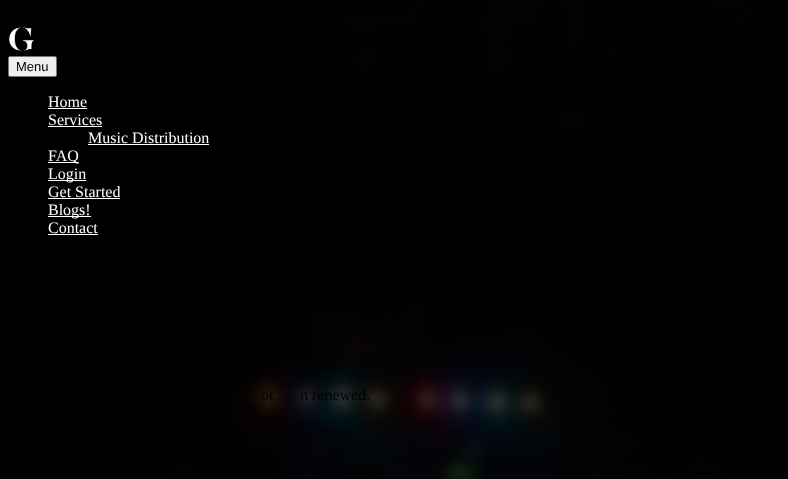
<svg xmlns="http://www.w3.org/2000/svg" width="788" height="479">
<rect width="100%" height="100%" fill="#fff"/>
<image x="0" y="0" width="788" height="479" href="media/1.png"/>
<image x="8" y="27" width="26" height="24" href="media/2.png"/>
<rect x="8.5" y="56.5" width="48" height="20" rx="1.5" fill="#efefef" stroke="#767676"/>
<text x="16" y="71" style="font-family:Liberation Sans;font-size:13px;fill:#000">Menu</text>
<text x="48" y="107" style="font-family:Liberation Serif;font-size:16px;fill:#fff">Home</text>
<rect x="48" y="108" width="39" height="1" fill="#fff"/>
<text x="48" y="125" style="font-family:Liberation Serif;font-size:16px;fill:#fff">Services</text>
<rect x="48" y="126" width="54" height="1" fill="#fff"/>
<text x="88" y="143" style="font-family:Liberation Serif;font-size:16px;fill:#fff">Music Distribution</text>
<rect x="88" y="144" width="121" height="1" fill="#fff"/>
<rect x="48" y="162" width="31" height="1" fill="#fff"/>
<text x="48" y="161" style="font-family:Liberation Serif;font-size:16px;fill:#fff">FAQ</text>
<rect x="48" y="180" width="38" height="1" fill="#fff"/>
<text x="48" y="179" style="font-family:Liberation Serif;font-size:16px;fill:#fff">Login</text>
<text x="48" y="197" style="font-family:Liberation Serif;font-size:16px;fill:#fff">Get Started</text>
<rect x="48" y="198" width="72" height="1" fill="#fff"/>
<rect x="48" y="216" width="43" height="1" fill="#fff"/>
<text x="48" y="215" style="font-family:Liberation Serif;font-size:16px;fill:#fff">Blogs!</text>
<text x="48" y="233" style="font-family:Liberation Serif;font-size:16px;fill:#fff">Contact</text>
<rect x="48" y="234" width="50" height="1" fill="#fff"/>
<text x="261" y="400" style="font-family:Liberation Serif;font-size:16px;fill:#000">ot</text>
<text x="300" y="400" style="font-family:Liberation Serif;font-size:16px;fill:#000">n renewed.</text>
</svg>
